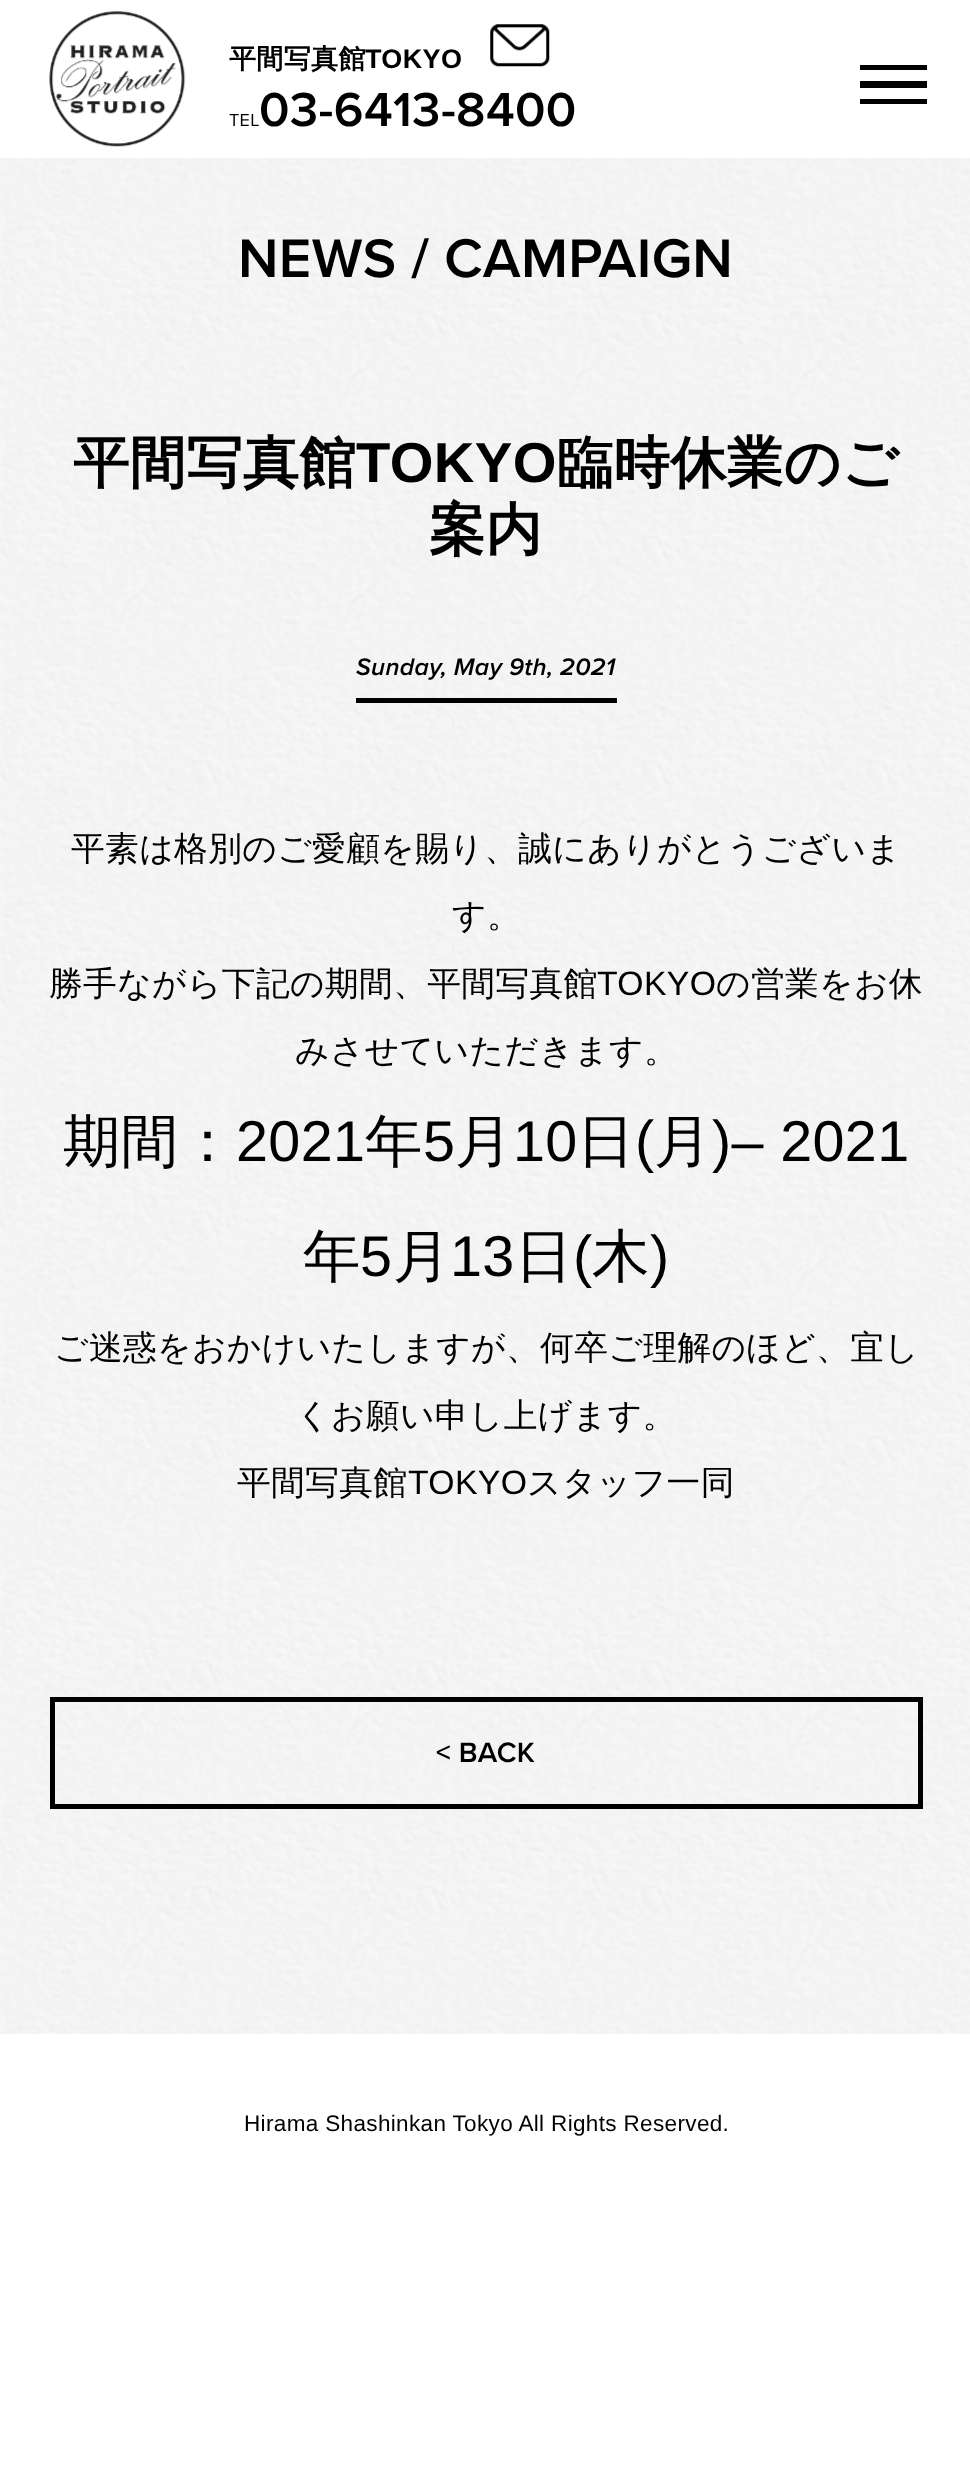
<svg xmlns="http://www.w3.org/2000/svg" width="970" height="2488">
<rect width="100%" height="100%" fill="#fff"/>
<image x="49" y="11" width="137" height="136" href="media/1.png"/>
<text x="229" y="68" style="font-family:WenQuanYi Zen Hei;font-size:27px;font-weight:bold;letter-spacing:0.35px;fill:#000">平間写真館</text>
<text x="365" y="68" style="font-family:Liberation Sans;font-size:27px;font-weight:bold;letter-spacing:0.35px;fill:#000">TOKYO</text>
<image x="490" y="24" width="60" height="43" href="media/2.png"/>
<text x="229" y="126" style="font-family:Proxima Nova;font-size:18px;letter-spacing:0.35px;fill:#000">TEL</text>
<text x="259" y="126" style="font-family:Proxima Nova;font-size:49.5px;font-weight:600;letter-spacing:0.35px;fill:#000">03-6413-8400</text>
<rect x="860" y="65" width="67" height="5" fill="#000"/>
<rect x="860" y="81" width="67" height="7" fill="#000"/>
<rect x="860" y="99" width="67" height="5" fill="#000"/>
<image x="0" y="158" width="970" height="1876" href="media/3.png"/>
<text x="238" y="277" style="font-family:Proxima Nova;font-size:56.25px;font-weight:600;letter-spacing:0.35px;fill:#000">NEWS / CAMPAIGN</text>
<text x="73" y="482" style="font-family:WenQuanYi Zen Hei;font-size:56.25px;font-weight:bold;letter-spacing:0.35px;fill:#000">平間写真館</text>
<text x="356" y="482" style="font-family:Liberation Sans;font-size:56.25px;font-weight:bold;letter-spacing:0.35px;fill:#000">TOKYO</text>
<text x="557" y="482" style="font-family:WenQuanYi Zen Hei;font-size:56.25px;font-weight:bold;letter-spacing:0.35px;fill:#000">臨時休業のご</text>
<text x="429" y="549" style="font-family:WenQuanYi Zen Hei;font-size:56.25px;font-weight:bold;letter-spacing:0.35px;fill:#000">案内</text>
<rect x="356" y="698" width="261" height="5" fill="#000"/>
<text x="356" y="675" style="font-family:Proxima Nova;font-size:24.75px;font-weight:600;font-style:italic;letter-spacing:0.35px;fill:#000">Sunday, May 9th, 2021</text>
<text x="71" y="860" style="font-family:WenQuanYi Zen Hei;font-size:33.75px;font-weight:500;letter-spacing:0.35px;fill:#000">平素は格別のご愛顧を賜り、誠にありがとうございま</text>
<text x="452" y="927" style="font-family:WenQuanYi Zen Hei;font-size:33.75px;font-weight:500;letter-spacing:0.35px;fill:#000">す。</text>
<text x="49" y="995" style="font-family:WenQuanYi Zen Hei;font-size:33.75px;font-weight:500;letter-spacing:0.35px;fill:#000">勝手ながら下記の期間、平間写真館</text>
<text x="597" y="995" style="font-family:Liberation Sans;font-size:33.75px;letter-spacing:0.35px;fill:#000">TOKYO</text>
<text x="716" y="995" style="font-family:WenQuanYi Zen Hei;font-size:33.75px;font-weight:500;letter-spacing:0.35px;fill:#000">の営業をお休</text>
<text x="295" y="1062" style="font-family:WenQuanYi Zen Hei;font-size:33.75px;font-weight:500;letter-spacing:0.35px;fill:#000">みさせていただきます。</text>
<text x="63" y="1161" style="font-family:WenQuanYi Zen Hei;font-size:57.5px;font-weight:500;letter-spacing:0.35px;fill:#000">期間：</text>
<text x="236" y="1161" style="font-family:Liberation Sans;font-size:57.5px;letter-spacing:0.35px;fill:#000">2021</text>
<text x="365" y="1161" style="font-family:WenQuanYi Zen Hei;font-size:57.5px;font-weight:500;letter-spacing:0.35px;fill:#000">年</text>
<text x="423" y="1161" style="font-family:Liberation Sans;font-size:57.5px;letter-spacing:0.35px;fill:#000">5</text>
<text x="455" y="1161" style="font-family:WenQuanYi Zen Hei;font-size:57.5px;font-weight:500;letter-spacing:0.35px;fill:#000">月</text>
<text x="513" y="1161" style="font-family:Liberation Sans;font-size:57.5px;letter-spacing:0.35px;fill:#000">10</text>
<text x="577" y="1161" style="font-family:WenQuanYi Zen Hei;font-size:57.5px;font-weight:500;letter-spacing:0.35px;fill:#000">日</text>
<text x="635" y="1161" style="font-family:Liberation Sans;font-size:57.5px;letter-spacing:0.35px;fill:#000">(</text>
<text x="654" y="1161" style="font-family:WenQuanYi Zen Hei;font-size:57.5px;font-weight:500;letter-spacing:0.35px;fill:#000">月</text>
<text x="712" y="1161" style="font-family:Liberation Sans;font-size:57.5px;letter-spacing:0.35px;fill:#000">)– 2021</text>
<text x="303" y="1276" style="font-family:WenQuanYi Zen Hei;font-size:57.5px;font-weight:500;letter-spacing:0.35px;fill:#000">年</text>
<text x="360" y="1276" style="font-family:Liberation Sans;font-size:57.5px;letter-spacing:0.35px;fill:#000">5</text>
<text x="393" y="1276" style="font-family:WenQuanYi Zen Hei;font-size:57.5px;font-weight:500;letter-spacing:0.35px;fill:#000">月</text>
<text x="450" y="1276" style="font-family:Liberation Sans;font-size:57.5px;letter-spacing:0.35px;fill:#000">13</text>
<text x="515" y="1276" style="font-family:WenQuanYi Zen Hei;font-size:57.5px;font-weight:500;letter-spacing:0.35px;fill:#000">日</text>
<text x="573" y="1276" style="font-family:Liberation Sans;font-size:57.5px;letter-spacing:0.35px;fill:#000">(</text>
<text x="592" y="1276" style="font-family:WenQuanYi Zen Hei;font-size:57.5px;font-weight:500;letter-spacing:0.35px;fill:#000">木</text>
<text x="650" y="1276" style="font-family:Liberation Sans;font-size:57.5px;letter-spacing:0.35px;fill:#000">)</text>
<text x="54" y="1359" style="font-family:WenQuanYi Zen Hei;font-size:33.75px;font-weight:500;letter-spacing:0.35px;fill:#000">ご迷惑をおかけいたしますが、何卒ご理解のほど、宜し</text>
<text x="296" y="1427" style="font-family:WenQuanYi Zen Hei;font-size:33.75px;font-weight:500;letter-spacing:0.35px;fill:#000">くお願い申し上げます。</text>
<text x="237" y="1494" style="font-family:WenQuanYi Zen Hei;font-size:33.75px;font-weight:500;letter-spacing:0.35px;fill:#000">平間写真館</text>
<text x="408" y="1494" style="font-family:Liberation Sans;font-size:33.75px;letter-spacing:0.35px;fill:#000">TOKYO</text>
<text x="527" y="1494" style="font-family:WenQuanYi Zen Hei;font-size:33.75px;font-weight:500;letter-spacing:0.35px;fill:#000">スタッフ一同</text>
<rect x="52.5" y="1699.5" width="868" height="107" fill="none" stroke="#000" stroke-width="5"/>
<text x="436" y="1762" style="font-family:Proxima Nova;font-size:29px;font-weight:600;letter-spacing:0.35px;fill:#000">&lt; BACK</text>
<text x="244" y="2131" style="font-family:Liberation Sans;font-size:22.5px;letter-spacing:0.35px;fill:#000">Hirama Shashinkan Tokyo All Rights Reserved.</text>
</svg>
